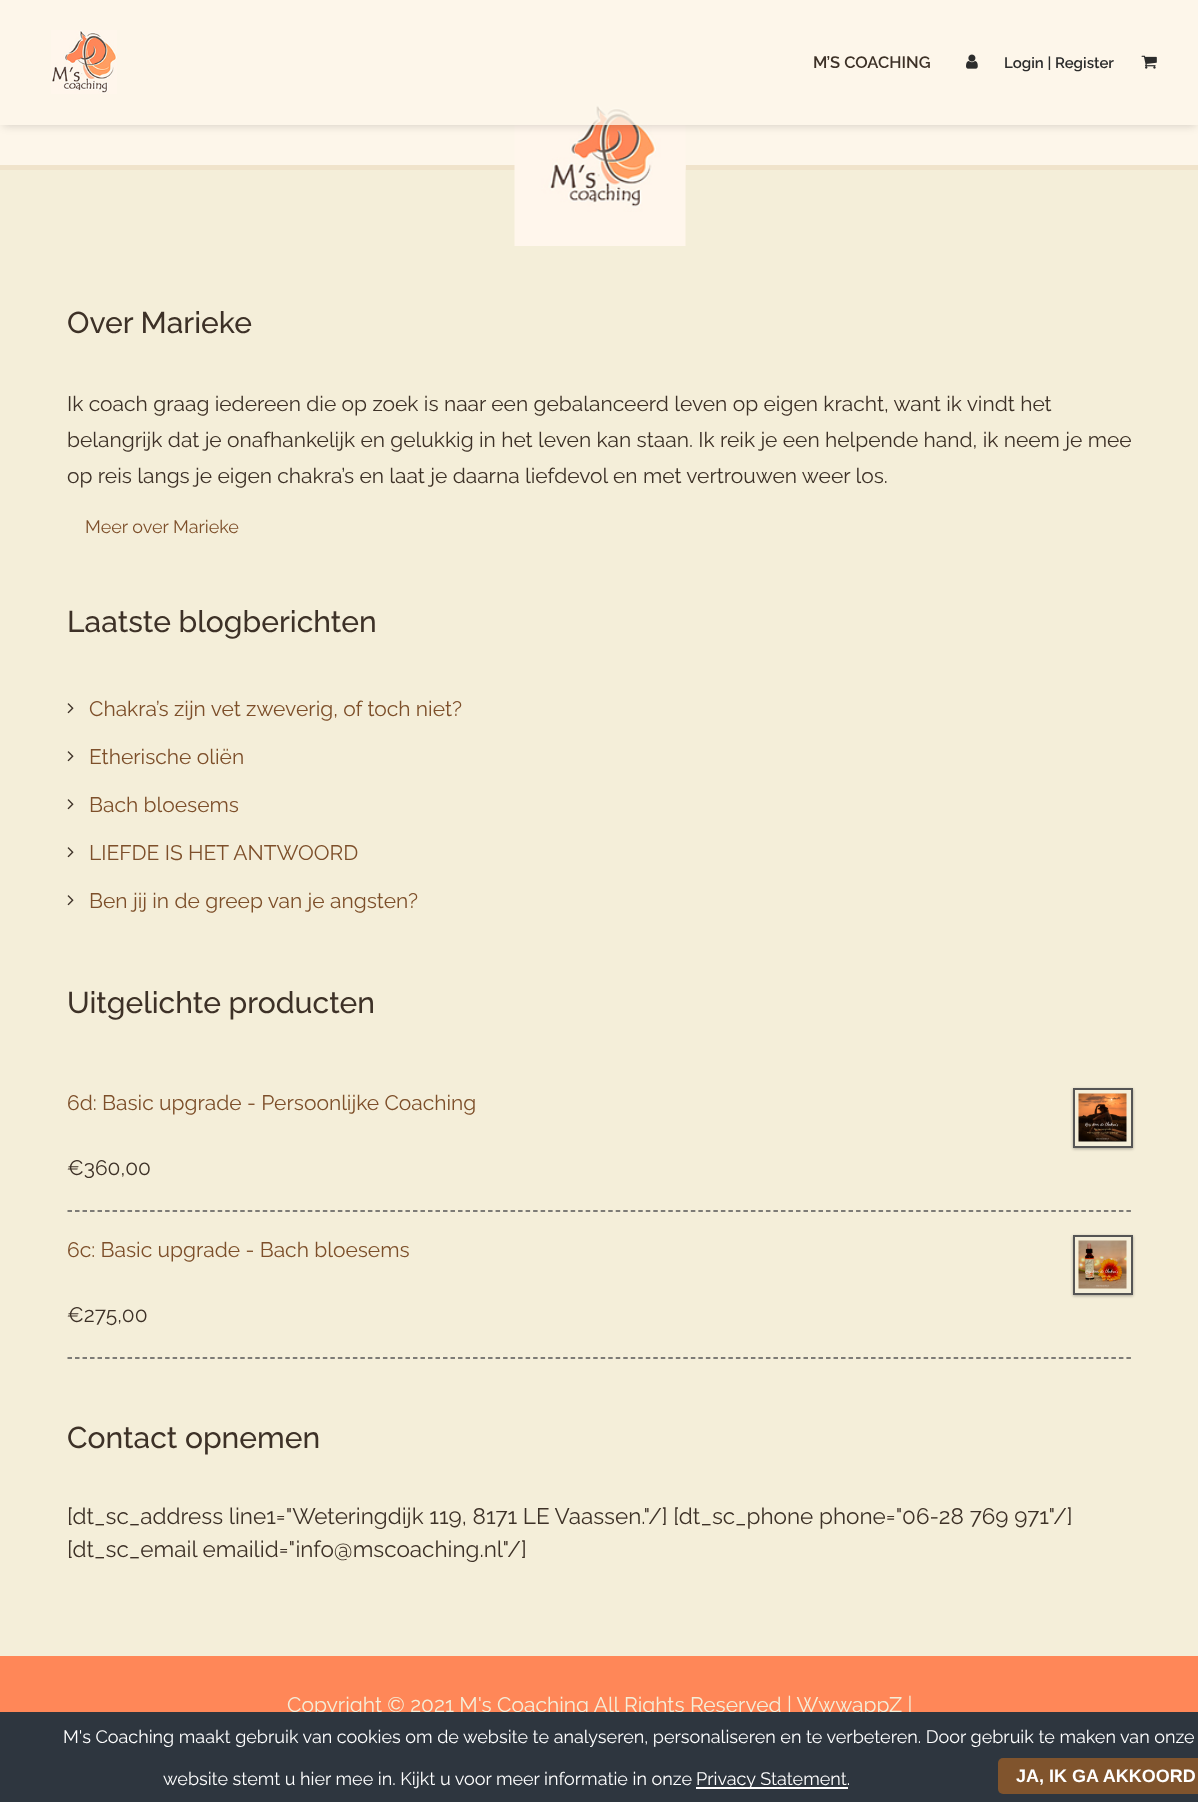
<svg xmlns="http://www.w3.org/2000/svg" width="1198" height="1802">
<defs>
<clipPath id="clip1"><path d="M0 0h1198v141h-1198zm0 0h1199v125h-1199z" clip-rule="evenodd"/></clipPath>
<clipPath id="clip2"><path d="M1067 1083h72v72h-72zm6 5h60v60h-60z" clip-rule="evenodd"/></clipPath>
<clipPath id="clip3"><path d="M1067 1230h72v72h-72zm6 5h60v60h-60z" clip-rule="evenodd"/></clipPath>
</defs>
<rect width="100%" height="100%" fill="#fdf6ea"/>
<rect y="170" width="1198" height="1486" fill="#f4eed9"/>
<rect y="165" width="1198" height="5" fill="#f0e3cb"/>
<circle cx="600.5" cy="160.5" r="85.5" fill="#fdf6ea"/>
<image x="514" y="104" width="172" height="142" href="media/4.png"/>
<g clip-path="url(#clip1)">
<rect x="3" y="8" width="1193" height="118" fill="#00000026" filter="blur(4.5px)"/>
</g>
<rect y="104" width="1198" height="21" fill="#fdf6eacc"/>
<image x="51" y="30" width="66" height="64" href="media/1.png"/>
<text x="813" y="68" style="font-family:Raleway;font-size:16.5px;font-weight:600;fill:#3d3127">M’S COACHING</text>
<image x="966" y="54" width="12" height="15" href="media/2.png"/>
<text x="1004" y="68" style="font-family:Raleway;font-size:15px;font-weight:600;fill:#2c2c2c">Login | Register</text>
<image x="1141" y="55" width="16" height="14" href="media/3.png"/>
<text x="67" y="333" style="font-family:Raleway;font-size:30px;font-weight:500;fill:#3d3127">Over Marieke</text>
<text x="67" y="411" style="font-family:Raleway;font-size:21px;fill:#3d3127">Ik coach graag iedereen die op zoek is naar een gebalanceerd leven op eigen kracht, want ik vindt het</text>
<text x="67" y="447" style="font-family:Raleway;font-size:21px;fill:#3d3127">belangrijk dat je onafhankelijk en gelukkig in het leven kan staan. Ik reik je een helpende hand, ik neem je mee</text>
<text x="67" y="483" style="font-family:Raleway;font-size:21px;fill:#3d3127">op reis langs je eigen chakra’s en laat je daarna liefdevol en met vertrouwen weer los.</text>
<text x="85" y="533" style="font-family:Raleway;font-size:18px;fill:#7d4f2a">Meer over Marieke</text>
<text x="67" y="632" style="font-family:Raleway;font-size:30px;font-weight:500;fill:#3d3127">Laatste blogberichten</text>
<image x="67" y="703" width="7" height="11" href="media/5.png"/>
<text x="89" y="716" style="font-family:Raleway;font-size:21px;fill:#7d4f2a">Chakra’s zijn vet zweverig, of toch niet?</text>
<image x="67" y="751" width="7" height="11" href="media/5.png"/>
<text x="89" y="764" style="font-family:Raleway;font-size:21px;fill:#7d4f2a">Etherische oliën</text>
<image x="67" y="799" width="7" height="11" href="media/5.png"/>
<text x="89" y="812" style="font-family:Raleway;font-size:21px;fill:#7d4f2a">Bach bloesems</text>
<image x="67" y="847" width="7" height="11" href="media/5.png"/>
<text x="89" y="860" style="font-family:Raleway;font-size:21px;fill:#7d4f2a">LIEFDE IS HET ANTWOORD</text>
<image x="67" y="895" width="7" height="11" href="media/5.png"/>
<text x="89" y="908" style="font-family:Raleway;font-size:21px;fill:#7d4f2a">Ben jij in de greep van je angsten?</text>
<text x="67" y="1013" style="font-family:Raleway;font-size:30px;font-weight:500;fill:#3d3127">Uitgelichte producten</text>
<path d="M67.5 1211h1065" fill="none" stroke="#555" stroke-width="1.5" stroke-dasharray="4.5 3.01"/>
<text x="67" y="1110" style="font-family:Raleway;font-size:21px;fill:#7d4f2a">6d: Basic upgrade - Persoonlijke Coaching</text>
<g clip-path="url(#clip2)">
<rect x="1073" y="1089" width="60" height="60" fill="#0000004d" filter="blur(1.5px)"/>
</g>
<rect x="1074" y="1089" width="58" height="58" fill="none" stroke="#555" stroke-width="2"/>
<image x="1078" y="1093" width="49" height="49" href="media/6.png"/>
<text x="67" y="1175" style="font-family:Raleway;font-size:21px;fill:#3d3127">€360,00</text>
<path d="M67.5 1358h1065" fill="none" stroke="#555" stroke-width="1.5" stroke-dasharray="4.5 3.01"/>
<text x="67" y="1257" style="font-family:Raleway;font-size:21px;fill:#7d4f2a">6c: Basic upgrade - Bach bloesems</text>
<g clip-path="url(#clip3)">
<rect x="1073" y="1236" width="60" height="60" fill="#0000004d" filter="blur(1.5px)"/>
</g>
<rect x="1074" y="1236" width="58" height="58" fill="none" stroke="#555" stroke-width="2"/>
<image x="1078" y="1240" width="49" height="49" href="media/7.png"/>
<text x="67" y="1322" style="font-family:Raleway;font-size:21px;fill:#3d3127">€275,00</text>
<text x="67" y="1448" style="font-family:Raleway;font-size:30px;font-weight:500;fill:#3d3127">Contact opnemen</text>
<text x="67" y="1524" style="font-family:Raleway;font-size:22.5px;fill:#3d3127">[dt_sc_address line1="Weteringdijk 119, 8171 LE Vaassen."/] [dt_sc_phone phone="06-28 769 971"/]</text>
<text x="67" y="1557" style="font-family:Raleway;font-size:22.5px;fill:#3d3127">[dt_sc_email emailid="info@mscoaching.nl"/]</text>
<rect y="1656" width="1198" height="56" fill="#ff8758"/>
<text x="287" y="1712" style="font-family:Raleway;font-size:21px;fill:#f4eed9">Copyright © 2021 M's Coaching All Rights Reserved | WwwappZ |</text>
<rect y="1712" width="1198" height="90" fill="#2e363f"/>
<text x="63" y="1743" style="font-family:Raleway;font-size:18px;fill:#fff">M's Coaching maakt gebruik van cookies om de website te analyseren, personaliseren en te verbeteren. Door gebruik te maken van onze</text>
<text x="163" y="1785" style="font-family:Raleway;font-size:18px;fill:#fff">website stemt u hier mee in. Kijkt u voor meer informatie in onze</text>
<rect x="696" y="1787" width="152" height="2" fill="#fff"/>
<text x="696" y="1785" style="font-family:Raleway;font-size:18px;fill:#fff">Privacy Statement.</text>
<rect x="998" y="1758" width="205" height="36" rx="5" fill="#80542d"/>
<text x="1016" y="1782" style="font-family:Liberation Sans;font-size:18px;font-weight:bold;fill:#fff">JA, IK GA AKKOORD</text>
</svg>
